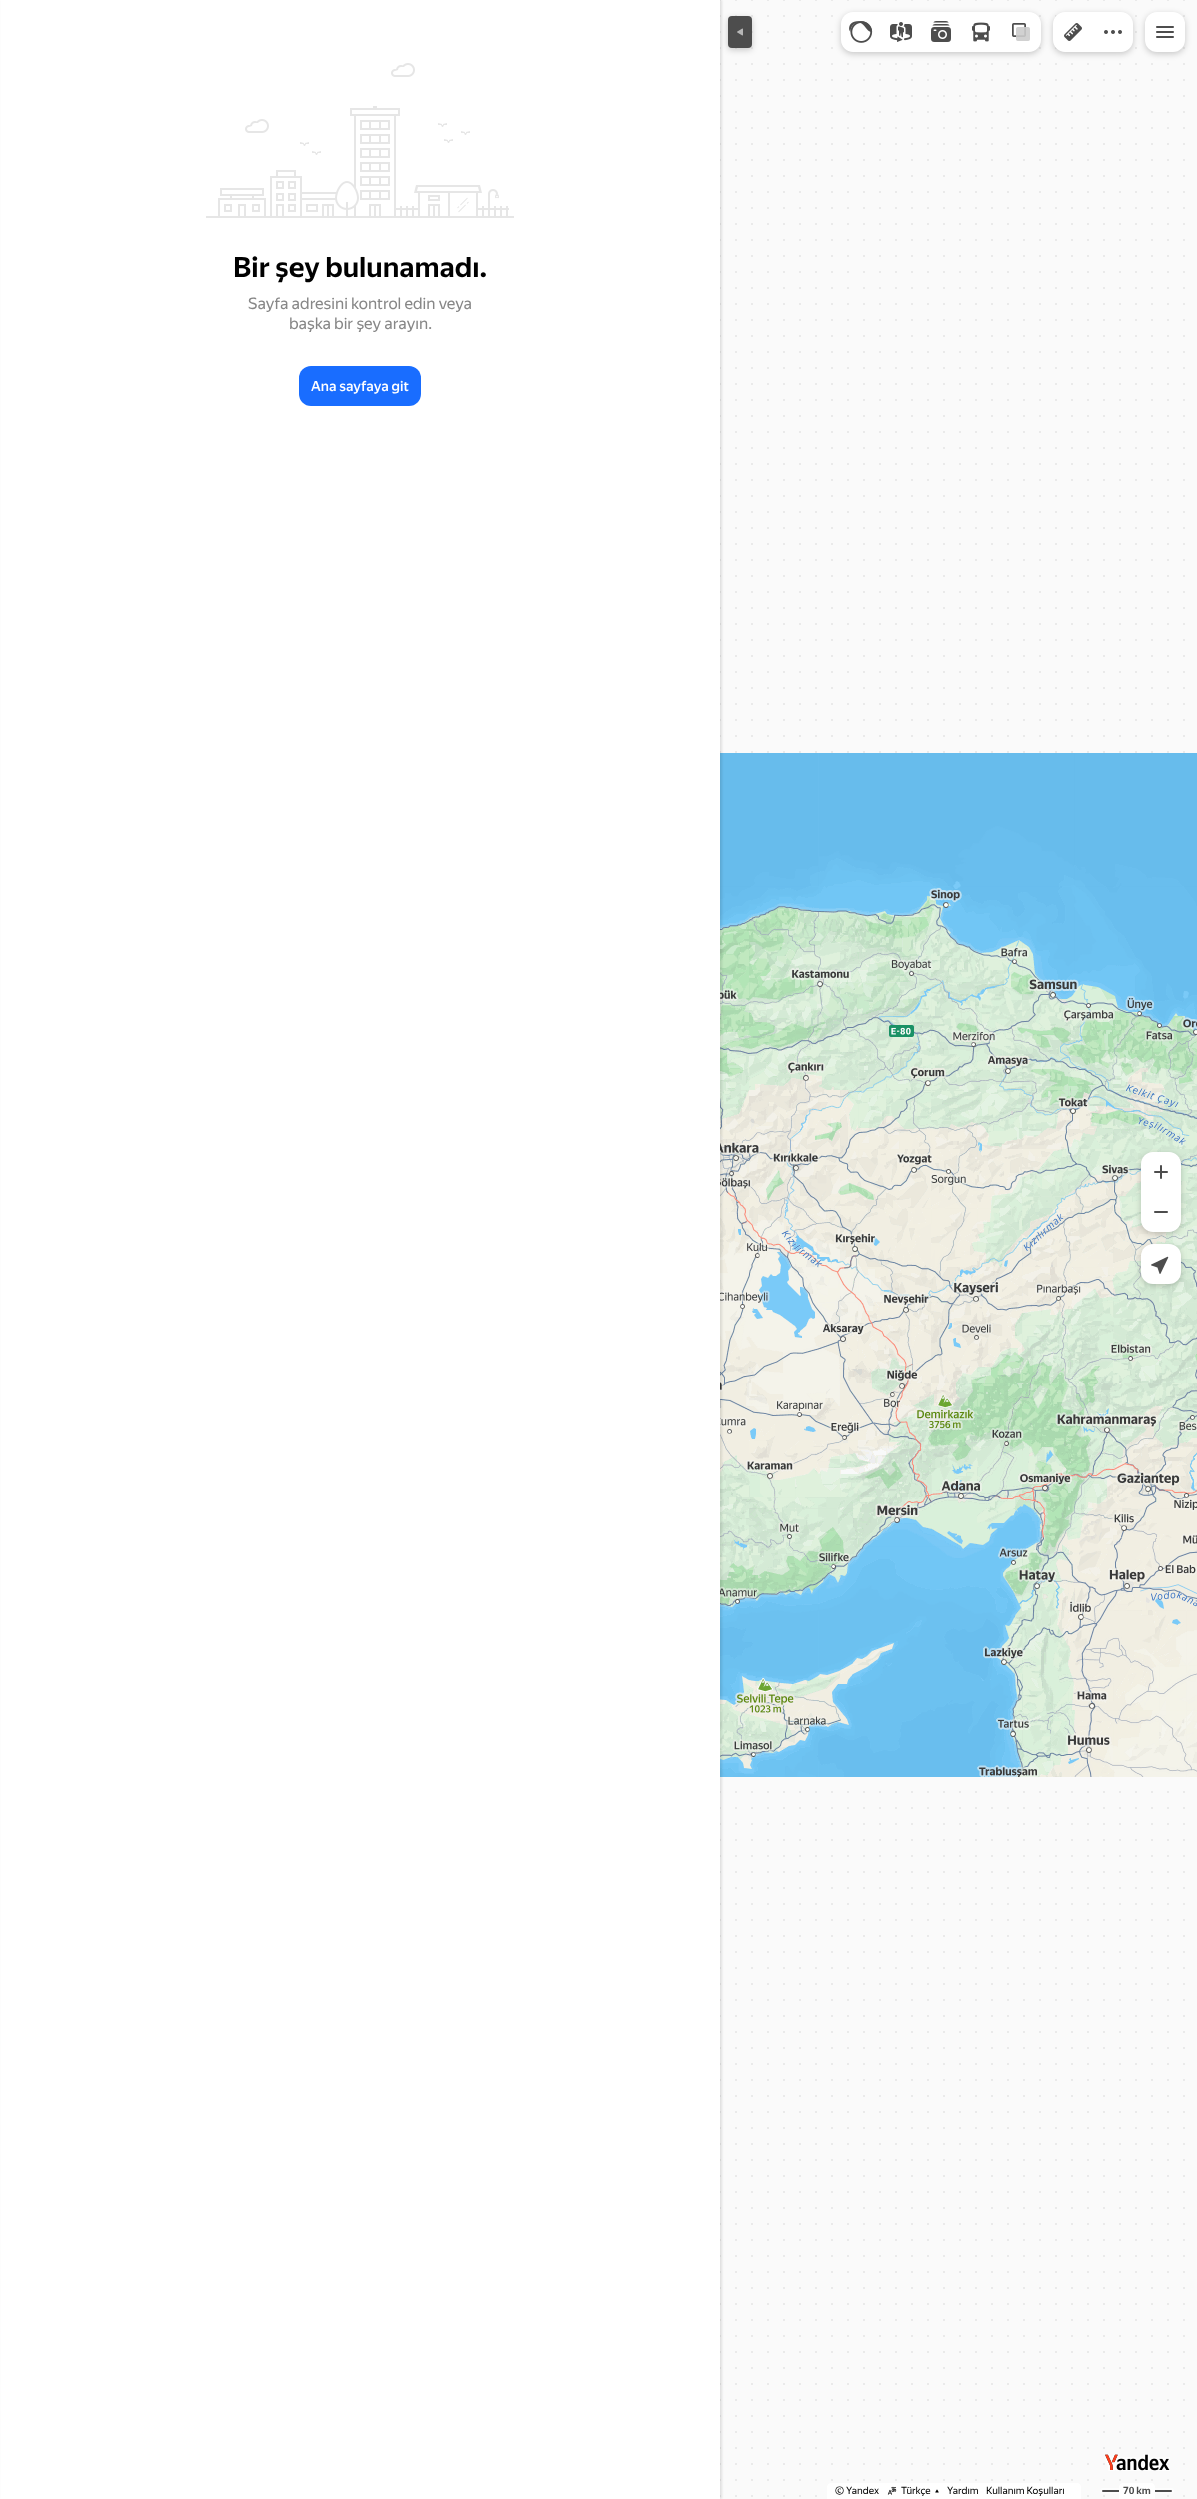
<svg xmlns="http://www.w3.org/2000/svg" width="1197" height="2499">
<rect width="100%" height="100%" fill="#fff"/>
<image x="720" y="0" width="477" height="2499" href="media/1.png"/>
<rect x="728" y="18" width="24" height="32" rx="4" fill="#00000033" filter="blur(3px)"/>
<rect x="728" y="16" width="24" height="32" rx="4" fill="#4d4d4d"/>
<image x="737" y="28" width="6" height="8" href="media/2.png"/>
<image x="720" y="753" width="98" height="256" href="media/18.png"/>
<image x="720" y="1009" width="98" height="256" href="media/21.png"/>
<image x="720" y="1265" width="98" height="256" href="media/24.png"/>
<image x="720" y="1521" width="98" height="256" href="media/27.png"/>
<rect x="2" width="720" height="2499" fill="#0000001a" filter="blur(1px)"/>
<rect x="1" width="719" height="2499" fill="#fff"/>
<image x="206" y="63" width="308" height="155" href="media/3.png"/>
<text x="233" y="277" style="font-family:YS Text;font-size:28px;font-weight:bold;fill:#000">Bir şey bulunamadı.</text>
<text x="248" y="309" style="font-family:YS Text;font-size:16px;fill:#878787">Sayfa adresini kontrol edin veya</text>
<text x="289" y="329" style="font-family:YS Text;font-size:16px;fill:#878787">başka bir şey arayın.</text>
<rect x="299" y="366" width="122" height="40" rx="12" fill="#196dff"/>
<text x="311" y="391" style="font-family:YS Text;font-size:14px;font-weight:500;fill:#fff">Ana sayfaya git</text>
<rect x="841" y="14" width="200" height="40" rx="12" fill="#00000033" filter="blur(3px)"/>
<path d="M853 12h28v40h-28c-6.5 0-12-5.5-12-12v-16c0-6.5 5.5-12 12-12z" fill="#fff"/>
<image x="849" y="21" width="24" height="22" href="media/4.png"/>
<rect x="881" y="12" width="120" height="40" fill="#fff"/>
<image x="890" y="22" width="22" height="20" href="media/5.png"/>
<path d="M1001 12h28c6.5 0 12 5.5 12 12v16c0 6.5-5.5 12-12 12h-28z" fill="#fff"/>
<image x="1012" y="23" width="18" height="18" href="media/6.png"/>
<image x="931" y="21" width="20" height="21" href="media/7.png"/>
<image x="972" y="22" width="18" height="20" href="media/8.png"/>
<rect x="1053" y="14" width="80" height="40" rx="12" fill="#00000033" filter="blur(3px)"/>
<path d="M1065 12h28v40h-28c-6.5 0-12-5.5-12-12v-16c0-6.5 5.5-12 12-12z" fill="#fff"/>
<image x="1064" y="23" width="18" height="18" href="media/9.png"/>
<path d="M1093 12h28c6.5 0 12 5.5 12 12v16c0 6.5-5.5 12-12 12h-28z" fill="#fff"/>
<image x="1104" y="30" width="18" height="4" href="media/10.png"/>
<rect x="1145" y="14" width="40" height="40" rx="12" fill="#00000033" filter="blur(3px)"/>
<rect x="1145" y="12" width="40" height="40" rx="12" fill="#fff"/>
<image x="1156" y="26" width="18" height="12" href="media/11.png"/>
<image x="1074" y="1009" width="123" height="256" href="media/23.png"/>
<rect x="1141" y="1154" width="40" height="80" rx="12" fill="#00000033" filter="blur(3px)"/>
<path d="M1153 1152h16c6.5 0 12 5.5 12 12v28h-40v-28c0-6.5 5.5-12 12-12z" fill="#fff"/>
<image x="1154" y="1165" width="14" height="14" href="media/12.png"/>
<path d="M1141 1192h40v28c0 6.5-5.5 12-12 12h-16c-6.5 0-12-5.5-12-12z" fill="#fff"/>
<image x="1154" y="1211" width="14" height="2" href="media/13.png"/>
<image x="1074" y="1265" width="123" height="256" href="media/26.png"/>
<rect x="1141" y="1246" width="40" height="40" rx="12" fill="#00000033" filter="blur(3px)"/>
<rect x="1141" y="1244" width="40" height="40" rx="12" fill="#fff"/>
<image x="1151" y="1256" width="18" height="18" href="media/14.png"/>
<image x="1105" y="2454" width="65" height="17" href="media/15.png"/>
<path d="M831 2483h246c2 0 4 2 4 4v12h-254v-12c0-2 2-4 4-4z" fill="#fff"/>
<text x="835" y="2494" style="font-family:YS Text;font-size:10px;fill:#000">© Yandex</text>
<image x="887" y="2486" width="10" height="9" href="media/16.png"/>
<text x="901" y="2494" style="font-family:YS Text;font-size:10px;fill:#000">Türkçe</text>
<image x="935" y="2489" width="4" height="4" href="media/17.png"/>
<text x="947" y="2494" style="font-family:YS Text;font-size:10px;fill:#000">Yardım</text>
<text x="986" y="2494" style="font-family:YS Text;font-size:10px;fill:#000">Kullanım Koşulları</text>
<rect x="1100" y="2488" width="74" height="6" rx="3" fill="#fdfdfd"/>
<rect x="1102" y="2490" width="70" height="2" rx="1" fill="#4d4d4d"/>
<path d="M1123 2483h28c2 0 4 2 4 4v12h-36v-12c0-2 2-4 4-4z" fill="#fff"/>
<text x="1123" y="2494" style="font-family:YS Text;font-size:10px;font-weight:bold;fill:#4d4d4d">70 km</text>
<image x="818" y="753" width="256" height="256" href="media/19.png"/>
<image x="1074" y="753" width="123" height="256" href="media/20.png"/>
<image x="818" y="1009" width="256" height="256" href="media/22.png"/>
<image x="818" y="1265" width="256" height="256" href="media/25.png"/>
<image x="818" y="1521" width="256" height="256" href="media/28.png"/>
<image x="1074" y="1521" width="123" height="256" href="media/29.png"/>
</svg>
